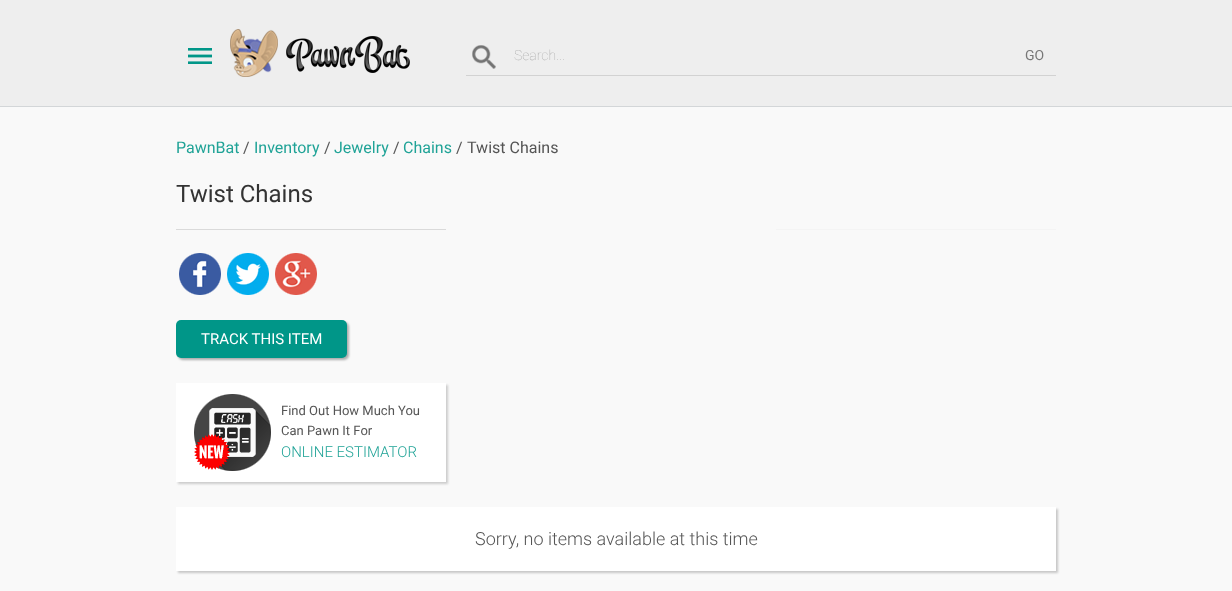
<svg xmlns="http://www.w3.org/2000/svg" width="1232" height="591">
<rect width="100%" height="100%" fill="#f9f9f9"/>
<rect width="1232" height="106" fill="#eee"/>
<rect y="106" width="1232" height="1" fill="#d3d6d8"/>
<image x="188" y="48" width="24" height="16" href="media/1.png"/>
<image x="230" y="29" width="180" height="48" href="media/2.png"/>
<rect x="466" y="75" width="590" height="1" fill="#d2d2d2"/>
<image x="472" y="45" width="24" height="24" href="media/3.png"/>
<text x="514" y="60" style="font-family:Roboto;font-size:14px;font-weight:100;fill:#aaa">Search...</text>
<text x="1025" y="60" style="font-family:Roboto;font-size:14px;fill:#777">GO</text>
<text x="176" y="153" style="font-family:Roboto;font-size:16px;fill:#20a397">PawnBat</text>
<text x="243" y="153" style="font-family:Roboto;font-size:16px;fill:#555">/</text>
<text x="254" y="153" style="font-family:Roboto;font-size:16px;fill:#20a397">Inventory</text>
<text x="324" y="153" style="font-family:Roboto;font-size:16px;fill:#555">/</text>
<text x="334" y="153" style="font-family:Roboto;font-size:16px;fill:#20a397">Jewelry</text>
<text x="393" y="153" style="font-family:Roboto;font-size:16px;fill:#555">/</text>
<text x="403" y="153" style="font-family:Roboto;font-size:16px;fill:#20a397">Chains</text>
<text x="456" y="153" style="font-family:Roboto;font-size:16px;fill:#555">/</text>
<text x="467" y="153" style="font-family:Roboto;font-size:16px;fill:#555">Twist Chains</text>
<text x="176" y="202" style="font-family:Roboto;font-size:24px;fill:#333">Twist Chains</text>
<rect x="776" y="229" width="280" height="1" fill="#f4f4f4"/>
<rect x="176" y="229" width="270" height="1" fill="#dadada"/>
<image x="179" y="253" width="42" height="42" href="media/4.png"/>
<image x="227" y="253" width="42" height="42" href="media/5.png"/>
<image x="275" y="253" width="42" height="42" href="media/6.png"/>
<rect x="178" y="322" width="171" height="38" rx="5" fill="#0000004d" filter="blur(1px)"/>
<rect x="176" y="320" width="171" height="38" rx="5" fill="#009688"/>
<text x="201" y="344" style="font-family:Roboto;font-size:15px;fill:#fff">TRACK THIS ITEM</text>
<rect x="178" y="385" width="270" height="99" fill="#ccc" filter="blur(1px)"/>
<rect x="176" y="383" width="270" height="99" fill="#fff"/>
<image x="194" y="394" width="77" height="77" href="media/7.png"/>
<text x="281" y="415" style="font-family:Roboto;font-size:13px;fill:#555">Find Out How Much You</text>
<text x="281" y="435" style="font-family:Roboto;font-size:13px;fill:#555">Can Pawn It For</text>
<text x="281" y="457" style="font-family:Roboto;font-size:15px;font-weight:300;fill:#20a397">ONLINE ESTIMATOR</text>
<rect x="178" y="509" width="880" height="64" fill="#00000033" filter="blur(1px)"/>
<rect x="176" y="507" width="880" height="64" fill="#fff"/>
<text x="475" y="545" style="font-family:Roboto;font-size:18px;font-weight:300;fill:#555">Sorry, no items available at this time</text>
</svg>
